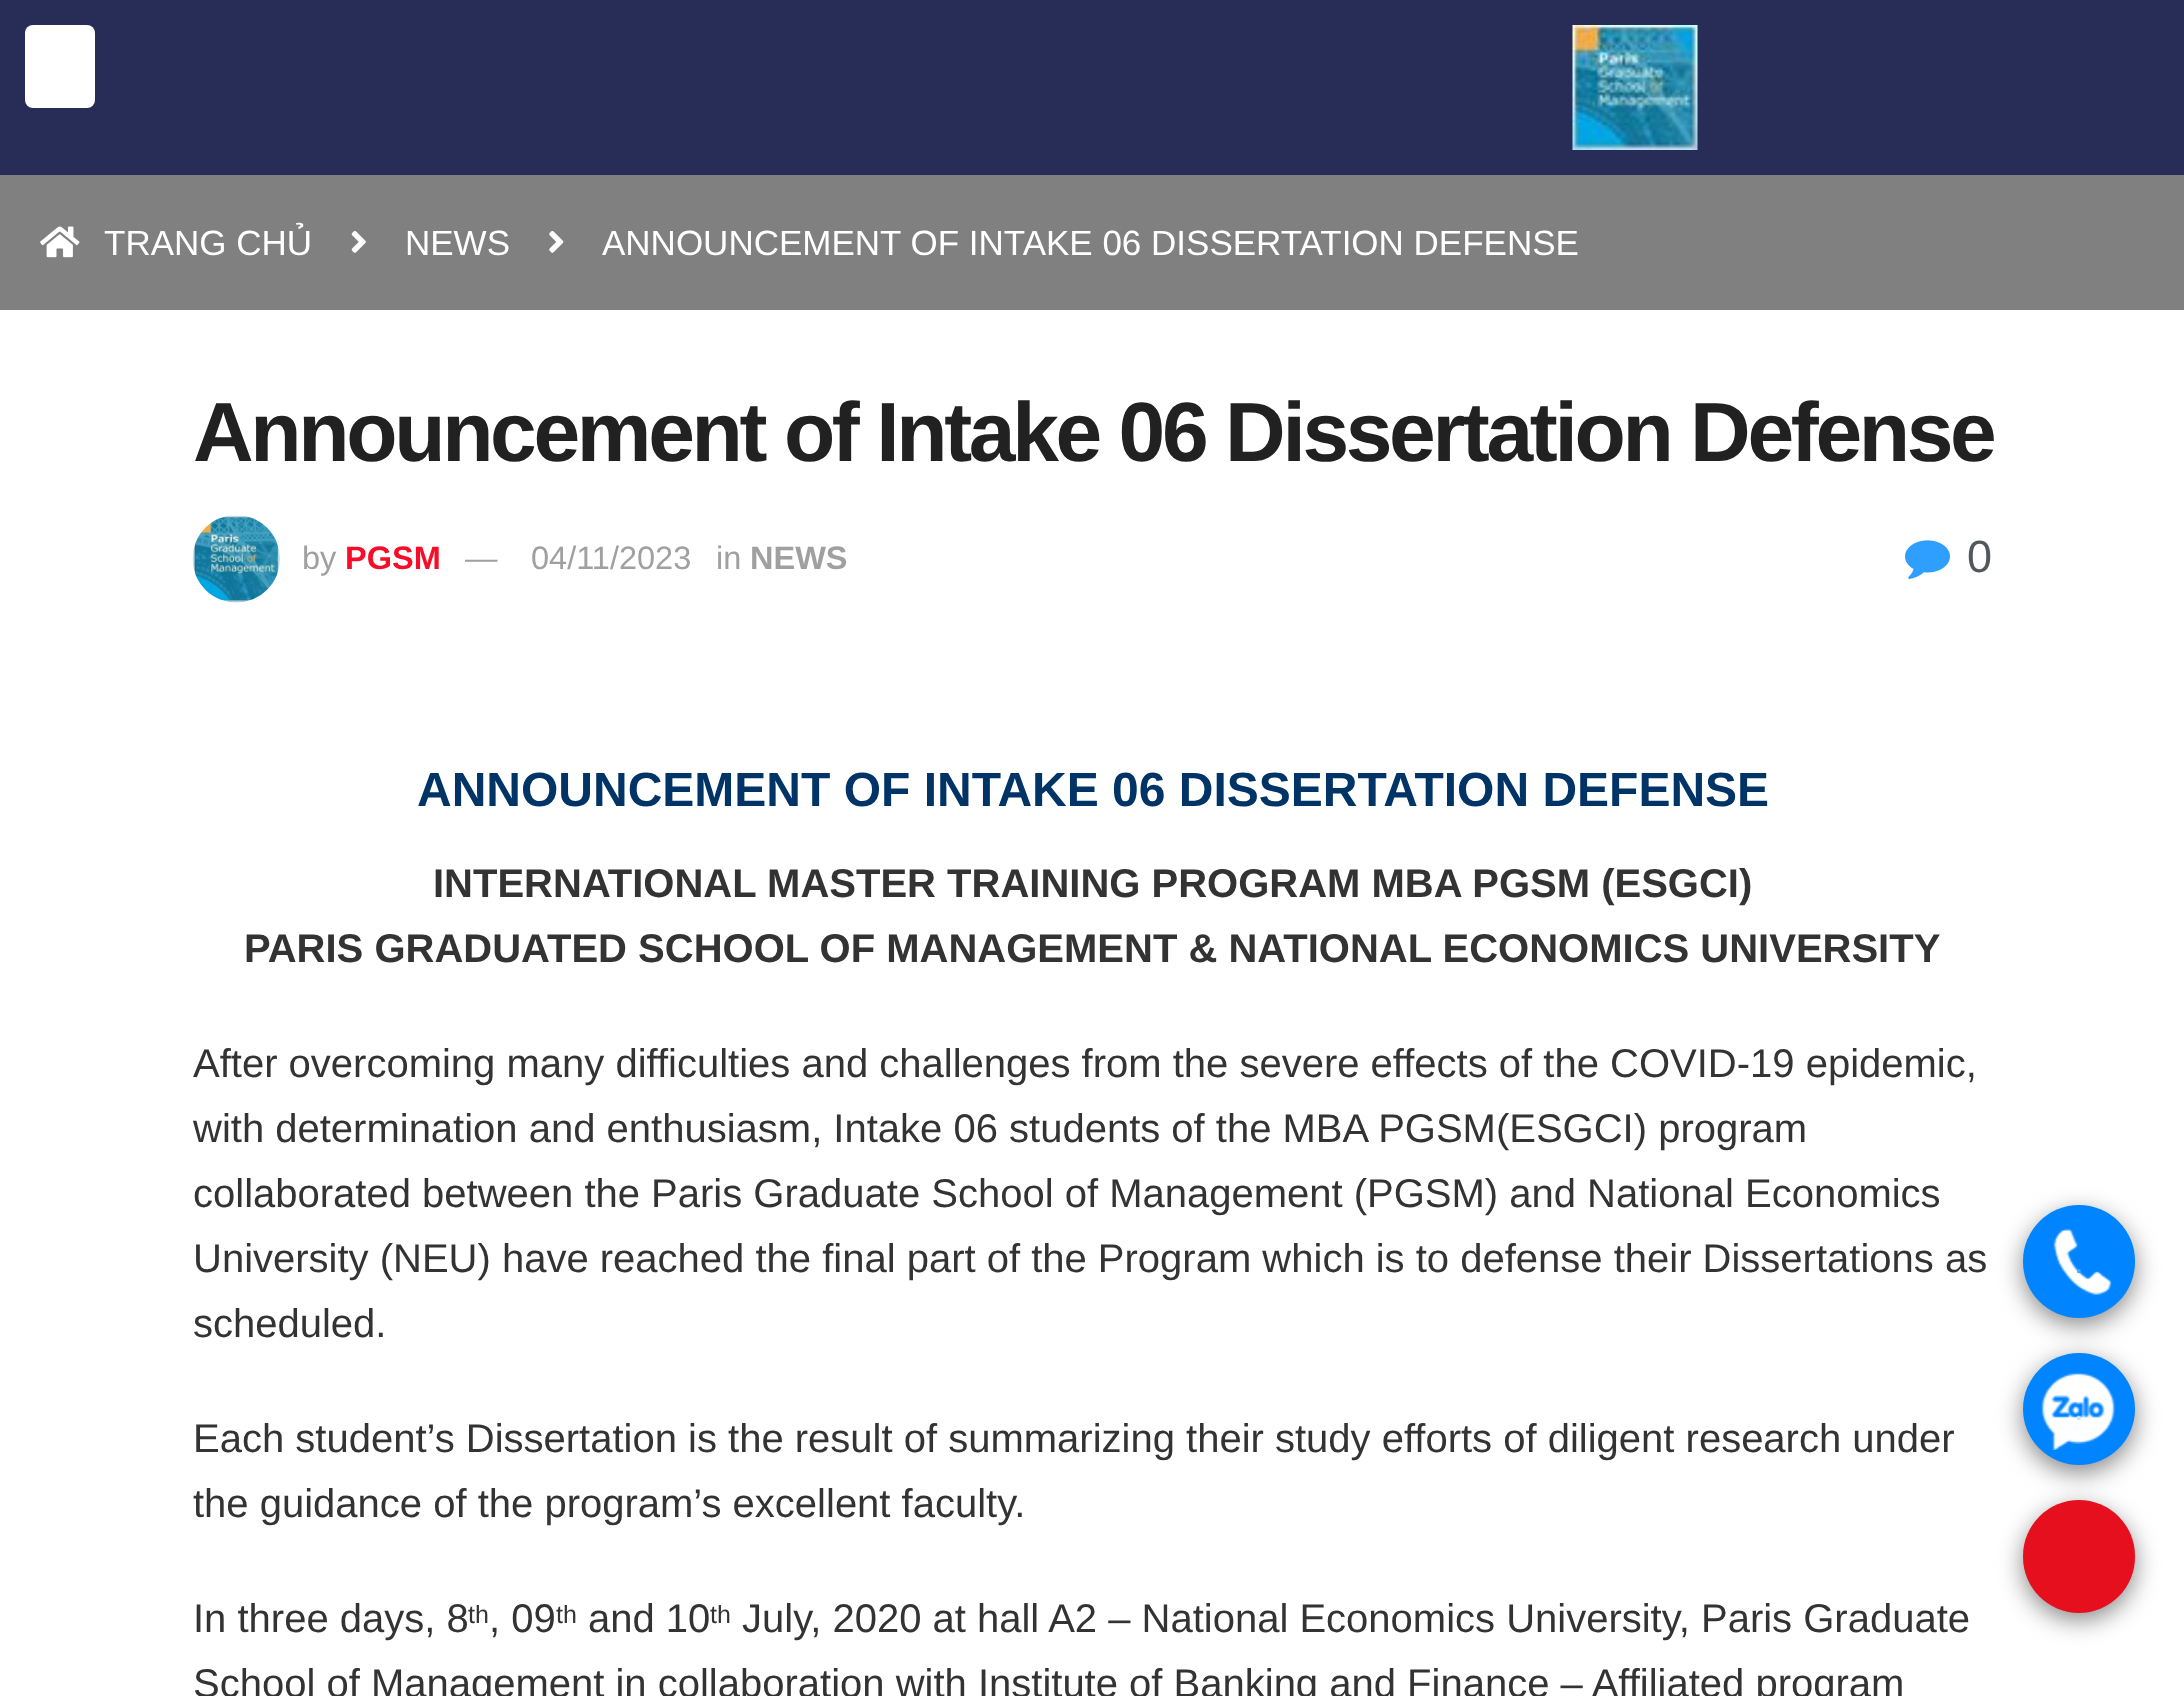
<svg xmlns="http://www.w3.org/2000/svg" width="2184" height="1696">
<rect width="100%" height="100%" fill="#fff"/>
<rect width="2184" height="175" fill="#272d56"/>
<rect x="25" y="25" width="70" height="83" rx="8" fill="#fff"/>
<image x="1572" y="25" width="126" height="125" href="media/1.png"/>
<rect y="175" width="2184" height="135" fill="#808080"/>
<image x="40" y="226" width="40" height="32" href="media/2.png"/>
<text x="104" y="255" style="font-family:Liberation Sans;font-size:35px;fill:#fff">TRANG CHỦ</text>
<image x="351" y="231" width="15" height="22" href="media/3.png"/>
<text x="405" y="255" style="font-family:Liberation Sans;font-size:35px;fill:#fff">NEWS</text>
<image x="549" y="231" width="15" height="22" href="media/4.png"/>
<text x="602" y="255" style="font-family:Liberation Sans;font-size:35px;fill:#fff">ANNOUNCEMENT OF INTAKE 06 DISSERTATION DEFENSE</text>
<text x="193" y="461" word-spacing="-0.25" style="font-family:Liberation Sans;font-size:84px;font-weight:bold;letter-spacing:-3.35px;fill:#212121">Announcement of Intake 06 Dissertation Defense</text>
<image x="192" y="515" width="88" height="88" href="media/5.png"/>
<text x="302" y="569" style="font-family:Liberation Sans;font-size:32.5px;fill:#a0a0a0">by</text>
<text x="345" y="569" style="font-family:Liberation Sans;font-size:32.5px;font-weight:bold;fill:#f70d28">PGSM</text>
<text x="465" y="569" style="font-family:Liberation Sans;font-size:32.5px;fill:#a0a0a0">—</text>
<text x="531" y="569" style="font-family:Liberation Sans;font-size:32.5px;fill:#a0a0a0">04/11/2023</text>
<text x="716" y="569" style="font-family:Liberation Sans;font-size:32.5px;fill:#a0a0a0">in</text>
<text x="750" y="569" style="font-family:Liberation Sans;font-size:32.5px;font-weight:bold;fill:#a0a0a0">NEWS</text>
<image x="1905" y="540" width="45" height="39" href="media/6.png"/>
<text x="1967" y="572" style="font-family:Liberation Sans;font-size:45px;fill:#53585c">0</text>
<text x="417" y="806" style="font-family:Liberation Sans;font-size:48px;font-weight:bold;fill:#036">ANNOUNCEMENT OF INTAKE 06 DISSERTATION DEFENSE</text>
<text x="433" y="897" style="font-family:Liberation Sans;font-size:40px;font-weight:bold;fill:#333">INTERNATIONAL MASTER TRAINING PROGRAM MBA PGSM (ESGCI)</text>
<text x="244" y="962" style="font-family:Liberation Sans;font-size:40px;font-weight:bold;fill:#333">PARIS GRADUATED SCHOOL OF MANAGEMENT &amp; NATIONAL ECONOMICS UNIVERSITY</text>
<text x="193" y="1077" style="font-family:Liberation Sans;font-size:40px;fill:#333">After overcoming many difficulties and challenges from the severe effects of the COVID-19 epidemic,</text>
<text x="193" y="1142" style="font-family:Liberation Sans;font-size:40px;fill:#333">with determination and enthusiasm, Intake 06 students of the MBA PGSM(ESGCI) program</text>
<text x="193" y="1207" style="font-family:Liberation Sans;font-size:40px;fill:#333">collaborated between the Paris Graduate School of Management (PGSM) and National Economics</text>
<text x="193" y="1272" style="font-family:Liberation Sans;font-size:40px;fill:#333">University (NEU) have reached the final part of the Program which is to defense their Dissertations as</text>
<text x="193" y="1337" style="font-family:Liberation Sans;font-size:40px;fill:#333">scheduled.</text>
<text x="193" y="1452" style="font-family:Liberation Sans;font-size:40px;fill:#333">Each student’s Dissertation is the result of summarizing their study efforts of diligent research under</text>
<text x="193" y="1517" style="font-family:Liberation Sans;font-size:40px;fill:#333">the guidance of the program’s excellent faculty.</text>
<text x="193" y="1632" style="font-family:Liberation Sans;font-size:40px;fill:#333">In three days, 8</text>
<text x="468" y="1623" style="font-family:Liberation Sans;font-size:25px;fill:#333">th</text>
<text x="489" y="1632" style="font-family:Liberation Sans;font-size:40px;fill:#333">, 09</text>
<text x="556" y="1623" style="font-family:Liberation Sans;font-size:25px;fill:#333">th</text>
<text x="588" y="1632" style="font-family:Liberation Sans;font-size:40px;fill:#333">and 10</text>
<text x="710" y="1623" style="font-family:Liberation Sans;font-size:25px;fill:#333">th</text>
<text x="742" y="1632" style="font-family:Liberation Sans;font-size:40px;fill:#333">July, 2020 at hall A2 – National Economics University, Paris Graduate</text>
<text x="193" y="1697" style="font-family:Liberation Sans;font-size:40px;fill:#333">School of Management in collaboration with Institute of Banking and Finance – Affiliated program</text>
<rect x="2023" y="1213" width="112" height="112" rx="56" fill="#888" filter="blur(12.5px)"/>
<rect x="2023" y="1205" width="112" height="113" rx="56" fill="#0084ff"/>
<image x="2053" y="1228" width="59" height="67" href="media/7.png"/>
<text x="2074" y="1273" style="font-family:Liberation Sans;font-size:35px;fill:#4ba8ff">.</text>
<rect x="2023" y="1360" width="112" height="113" rx="56" fill="#888" filter="blur(12.5px)"/>
<circle cx="2079" cy="1409" r="56" fill="#0084ff"/>
<image x="2041" y="1372" width="75" height="78" href="media/8.png"/>
<text x="2074" y="1420" style="font-family:Liberation Sans;font-size:35px;fill:#cbe5ff">.</text>
<rect x="2023" y="1508" width="112" height="112" rx="56" fill="#888" filter="blur(12.5px)"/>
<rect x="2023" y="1500" width="112" height="113" rx="56" fill="#e60f1e"/>
</svg>
